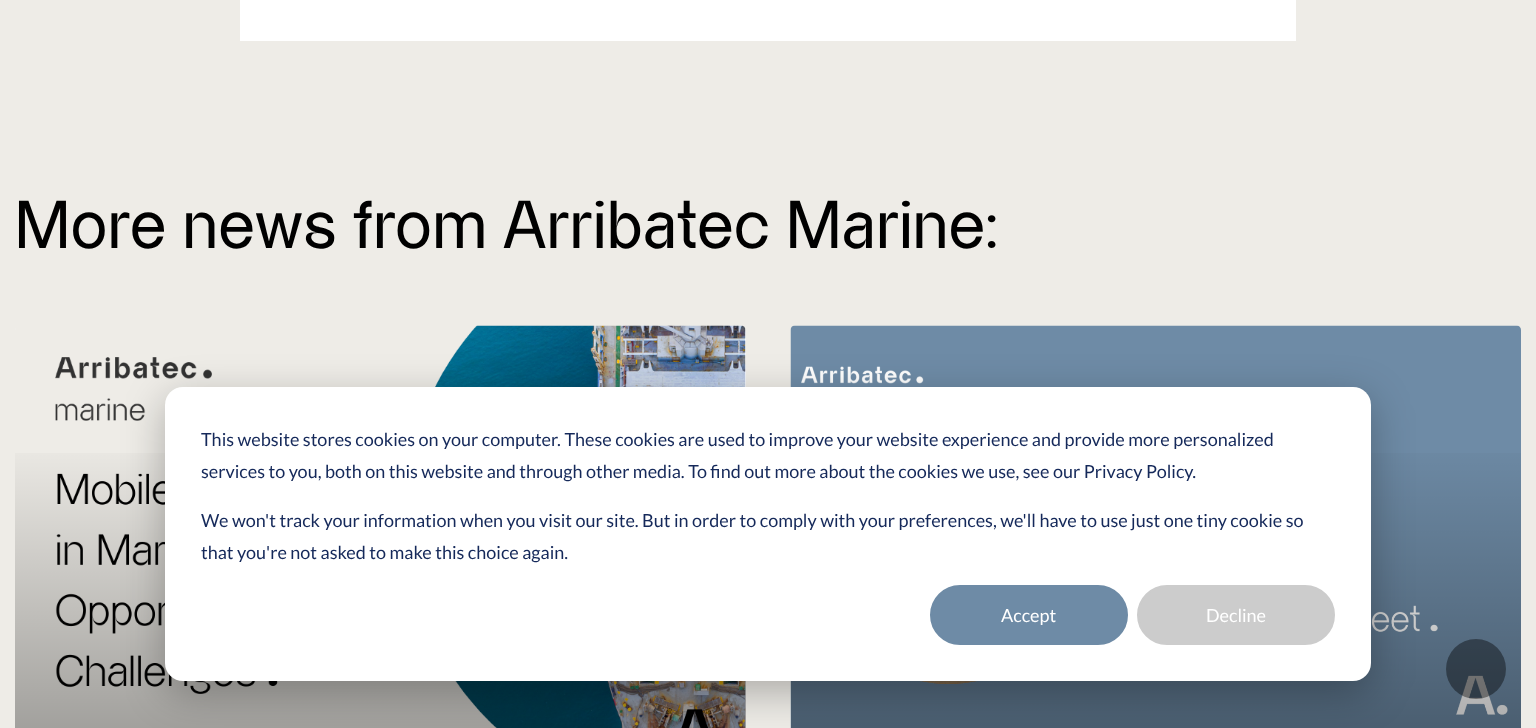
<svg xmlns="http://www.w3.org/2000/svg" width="1536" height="728">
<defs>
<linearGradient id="g1" gradientUnits="userSpaceOnUse" x1="380" y1="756" x2="380" y2="326"><stop offset="0" stop-color="#000" stop-opacity="0.35"/><stop offset="0.75" stop-color="#000" stop-opacity="0"/></linearGradient>
<linearGradient id="g2" gradientUnits="userSpaceOnUse" x1="1156" y1="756" x2="1156" y2="326"><stop offset="0" stop-color="#000" stop-opacity="0.35"/><stop offset="0.75" stop-color="#000" stop-opacity="0"/></linearGradient>
</defs>
<rect width="100%" height="100%" fill="#eeece7"/>
<rect x="240" width="1056" height="41" fill="#fff"/>
<text x="15" y="248" style="font-family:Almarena;font-size:67.5px;letter-spacing:0.75px;fill:#000">More news from Arribatec Marine:</text>
<rect x="15" y="326" width="731" height="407" rx="5" fill="#fff"/>
<image x="15" y="325" width="731" height="403" href="media/1.png"/>
<rect x="15" y="453" width="731" height="275" fill="url(#g1)"/>
<image x="790" y="325" width="731" height="403" href="media/2.png"/>
<rect x="791" y="453" width="730" height="275" fill="url(#g2)"/>
<rect x="165" y="399" width="1206" height="294" rx="18" fill="#00000047" filter="blur(21px)"/>
<rect x="165" y="387" width="1206" height="294" rx="18" fill="#fff"/>
<text x="201" y="446" style="font-family:Lato;font-size:18px;fill:#15295a">This website stores cookies on your computer. These cookies are used to improve your website experience and provide more personalized</text>
<text x="201" y="478" style="font-family:Lato;font-size:18px;fill:#15295a">services to you, both on this website and through other media. To find out more about the cookies we use, see our Privacy Policy.</text>
<text x="201" y="527" style="font-family:Lato;font-size:18px;fill:#15295a">We won't track your information when you visit our site. But in order to comply with your preferences, we'll have to use just one tiny cookie so</text>
<text x="201" y="559" style="font-family:Lato;font-size:18px;fill:#15295a">that you're not asked to make this choice again.</text>
<rect x="931" y="586" width="196" height="58" rx="29" fill="#6e8ba6" stroke="#6e8ba6" stroke-width="2"/>
<text x="1001" y="622" style="font-family:Lato;font-size:18px;fill:#fff">Accept</text>
<rect x="1138" y="586" width="196" height="58" rx="29" fill="#ccc" stroke="#ccc" stroke-width="2"/>
<text x="1206" y="622" style="font-family:Lato;font-size:18px;fill:#fff">Decline</text>
<circle cx="1476" cy="669" r="30" fill="#00000066"/>
</svg>
